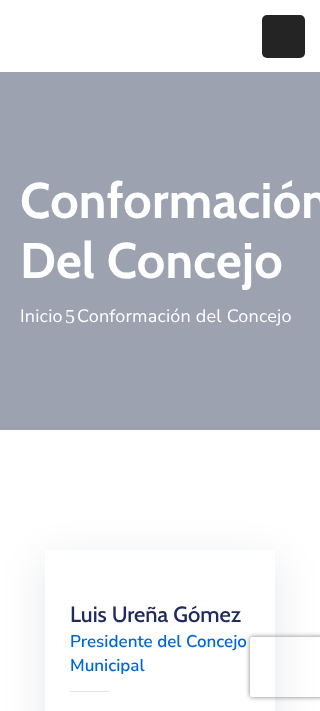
<svg xmlns="http://www.w3.org/2000/svg" width="320" height="711">
<defs>
<clipPath id="clip1"><path d="M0 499h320v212h-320zm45 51h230v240h-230z" clip-rule="evenodd"/></clipPath>
<clipPath id="clip2"><path d="M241 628h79v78h-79zm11 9h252c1 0 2 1 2 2v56c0 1-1 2-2 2h-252c-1 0-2-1-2-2v-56c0-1 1-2 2-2z" clip-rule="evenodd"/></clipPath>
</defs>
<rect width="100%" height="100%" fill="#fff"/>
<rect x="262" y="15" width="43" height="43" rx="5" fill="#242424"/>
<rect y="72" width="320" height="358" fill="#9ca2b0"/>
<text x="20" y="218" style="font-family:Cabin;font-size:50px;font-weight:bold;letter-spacing:0.2px;fill:#fff">Conformación</text>
<text x="20" y="278" style="font-family:Cabin;font-size:50px;font-weight:bold;letter-spacing:0.2px;fill:#fff">Del Concejo</text>
<text x="20" y="322" style="font-family:Nunito Sans;font-size:18px;letter-spacing:0.2px;fill:#fff">Inicio</text>
<text x="65" y="323" style="font-family:Liberation Serif;font-size:20px;letter-spacing:0.2px;fill:#fff">5</text>
<text x="77" y="322" style="font-family:Nunito Sans;font-size:18px;letter-spacing:0.2px;fill:#fff">Conformación del Concejo</text>
<g clip-path="url(#clip1)">
<rect x="45" y="560" width="230" height="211" fill="#06163a1a" filter="blur(20px)"/>
</g>
<text x="70" y="622" style="font-family:Cabin;font-size:22px;font-weight:500;fill:#202b5d">Luis Ureña Gómez</text>
<text x="70" y="647" style="font-family:Nunito Sans;font-size:17px;font-weight:600;fill:#0067da">Presidente del Concejo</text>
<text x="70" y="671" style="font-family:Nunito Sans;font-size:17px;font-weight:600;fill:#0067da">Municipal</text>
<rect x="70" y="691" width="40" height="1" fill="#e5e5e9"/>
<g clip-path="url(#clip2)">
<rect x="250" y="637" width="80" height="60" rx="2" fill="#808080" filter="blur(2.5px)"/>
</g>
</svg>
